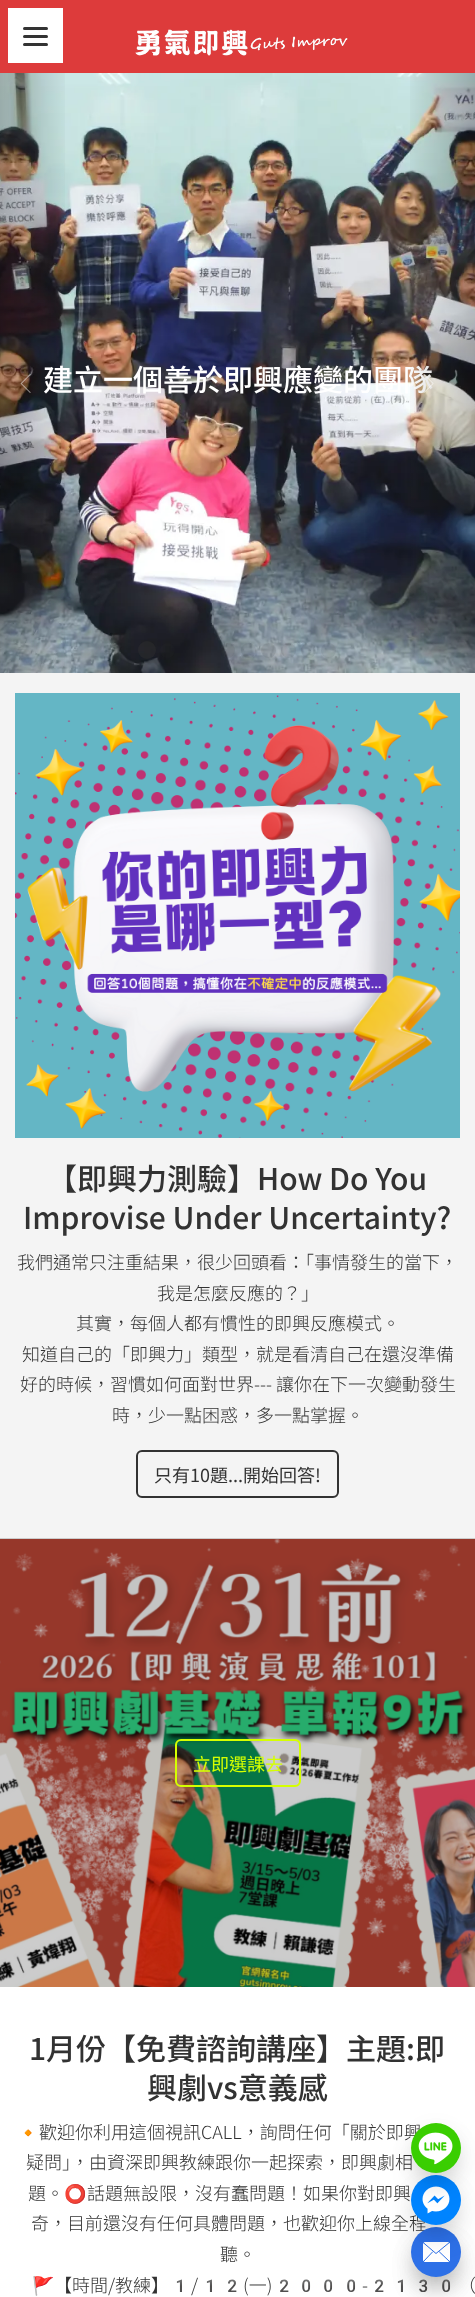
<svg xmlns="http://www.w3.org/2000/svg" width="475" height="2297">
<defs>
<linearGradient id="g1" gradientUnits="userSpaceOnUse" x1="0" y1="373" x2="71" y2="373"><stop offset="0" stop-color="#000" stop-opacity="0.25"/><stop offset="1" stop-color="#000" stop-opacity="0"/></linearGradient>
<linearGradient id="g2" gradientUnits="userSpaceOnUse" x1="404" y1="373" x2="475" y2="373"><stop offset="0" stop-color="#000" stop-opacity="0"/><stop offset="1" stop-color="#000" stop-opacity="0.25"/></linearGradient>
</defs>
<rect width="100%" height="100%" fill="#f4f4f4"/>
<rect width="475" height="73" fill="#dd3b3b"/>
<rect x="8" y="8" width="55" height="55" fill="#fff"/>
<rect x="23" y="35" width="25" height="3" rx="1.5" fill="#333"/>
<rect x="23" y="27" width="25" height="3" rx="1.5" fill="#333"/>
<rect x="23" y="43" width="25" height="3" rx="1.5" fill="#333"/>
<image x="135" y="29" width="213" height="27" href="media/1.png"/>
<image x="0" y="73" width="475" height="600" href="media/3.png"/>
<rect y="73" width="65" height="600" fill="url(#g1)"/>
<image x="20" y="374" width="11" height="19" href="media/2.png"/>
<text x="43" y="391" style="font-family:Noto Sans TC;font-size:30px;font-weight:500;fill:#fff">建立一個善於即興應變的團隊</text>
<rect x="410" y="73" width="65" height="600" fill="url(#g2)"/>
<image x="423" y="374" width="11" height="19" href="media/4.png"/>
<circle cx="147" cy="650" r="9" fill="#32323266"/>
<circle cx="167.5" cy="650.5" r="7.5" fill="#3232321a"/>
<circle cx="227.5" cy="650.5" r="7.5" fill="#3232321a"/>
<circle cx="248.5" cy="650.5" r="7.5" fill="#3232321a"/>
<circle cx="268.5" cy="650.5" r="7.5" fill="#3232321a"/>
<circle cx="288.5" cy="650.5" r="7.5" fill="#3232321a"/>
<circle cx="308.5" cy="650.5" r="7.5" fill="#3232321a"/>
<circle cx="328.5" cy="650.5" r="7.5" fill="#3232321a"/>
<image x="15" y="693" width="445" height="445" href="media/5.png"/>
<text x="47" y="1190" style="font-family:Noto Sans TC;font-size:30px;font-weight:500;fill:#323232">【即興力測驗】How Do You</text>
<text x="23" y="1229" style="font-family:Noto Sans TC;font-size:30px;font-weight:500;fill:#323232">Improvise Under Uncertainty?</text>
<text x="17" y="1269" style="font-family:Noto Sans TC;font-size:18px;font-weight:300;fill:#323232">我們通常只注重結果，很少回頭看：「事情發生的當下，</text>
<text x="157" y="1300" style="font-family:Noto Sans TC;font-size:18px;font-weight:300;fill:#323232">我是怎麼反應的？」</text>
<text x="76" y="1330" style="font-family:Noto Sans TC;font-size:18px;font-weight:300;fill:#323232">其實，每個人都有慣性的即興反應模式。</text>
<text x="22" y="1361" style="font-family:Noto Sans TC;font-size:18px;font-weight:300;fill:#323232">知道自己的「即興力」類型，就是看清自己在還沒準備</text>
<text x="20" y="1391" style="font-family:Noto Sans TC;font-size:18px;font-weight:300;fill:#323232">好的時候，習慣如何面對世界--- 讓你在下一次變動發生</text>
<text x="112" y="1422" style="font-family:Noto Sans TC;font-size:18px;font-weight:300;fill:#323232">時，少一點困惑，多一點掌握。</text>
<rect x="137" y="1451" width="201" height="46" rx="5" fill="none" stroke="#323232" stroke-width="2"/>
<text x="154" y="1482" style="font-family:Noto Sans TC;font-size:18px;fill:#323232">只有10題...開始回答!</text>
<image x="0" y="1539" width="475" height="448" href="media/6.png"/>
<rect y="1538" width="475" height="1" fill="#ccc"/>
<rect x="176" y="1740" width="124" height="46" rx="5" fill="none" stroke="#d5ff00" stroke-width="2"/>
<text x="193" y="1771" style="font-family:Noto Sans TC;font-size:18px;fill:#d5ff00">立即選課去</text>
<rect y="1987" width="475" height="310" fill="#fff"/>
<text x="29" y="2060" style="font-family:Noto Sans TC;font-size:30px;font-weight:500;fill:#323232">1月份【免費諮詢講座】主題:即</text>
<text x="147" y="2099" style="font-family:Noto Sans TC;font-size:30px;font-weight:500;fill:#323232">興劇vs意義感</text>
<text x="17" y="2139" style="font-family:Noto Color Emoji;font-size:18px;fill:#323232">🔸</text>
<text x="39" y="2139" style="font-family:Noto Sans TC;font-size:18px;font-weight:300;fill:#323232">歡迎你利用這個視訊CALL，詢問任何「關於即興</text>
<text x="26" y="2169" style="font-family:Noto Sans TC;font-size:18px;font-weight:300;fill:#323232">疑問」，由資深即興教練跟你一起探索，即興劇相</text>
<text x="28" y="2200" style="font-family:Noto Sans TC;font-size:18px;font-weight:300;fill:#323232">題。</text>
<text x="64" y="2200" style="font-family:Noto Color Emoji;font-size:18px;fill:#323232">⭕️</text>
<text x="87" y="2200" style="font-family:Noto Sans TC;font-size:18px;font-weight:300;fill:#323232">話題無設限，沒有蠢問題！如果你對即興</text>
<text x="31" y="2230" style="font-family:Noto Sans TC;font-size:18px;font-weight:300;fill:#323232">奇，目前還沒有任何具體問題，也歡迎你上線全程</text>
<text x="220" y="2261" style="font-family:Noto Sans TC;font-size:18px;font-weight:300;fill:#323232">聽。</text>
<text x="32" y="2292" style="font-family:Noto Color Emoji;font-size:18px;fill:#323232">🚩</text>
<text x="54" y="2292" style="font-family:Noto Sans TC;font-size:18px;font-weight:300;fill:#323232">【時間/教練】</text>
<text x="169" y="2292" style="font-family:Noto Color Emoji;font-size:18px;fill:#323232">1</text>
<text x="191" y="2292" style="font-family:Noto Sans TC;font-size:18px;font-weight:300;fill:#323232">/</text>
<text x="199" y="2292" style="font-family:Noto Color Emoji;font-size:18px;fill:#323232">12</text>
<text x="243" y="2292" style="font-family:Noto Sans TC;font-size:18px;font-weight:300;fill:#323232">(一)</text>
<text x="273" y="2292" style="font-family:Noto Color Emoji;font-size:18px;fill:#323232">2000</text>
<text x="362" y="2292" style="font-family:Noto Sans TC;font-size:18px;font-weight:300;fill:#323232">-</text>
<text x="368" y="2292" style="font-family:Noto Color Emoji;font-size:18px;fill:#323232">2130</text>
<text x="458" y="2292" style="font-family:Noto Sans TC;font-size:18px;font-weight:300;fill:#323232">（</text>
<rect x="421" y="2252" width="30" height="30" rx="15" fill="#0000004d" filter="blur(15px)"/>
<rect x="411" y="2232" width="50" height="50" rx="25" fill="#0000000d" filter="blur(10px)"/>
<rect x="421" y="2252" width="30" height="30" rx="15" fill="#0000004d" filter="blur(15px)"/>
<circle cx="436" cy="2252" r="25" fill="#2d70e7"/>
<rect x="423" y="2242" width="27" height="20" rx="2" fill="#fff"/>
<path d="M432.5 2252l-9 9.5m16-9.5l10 9.5m-27-19.5l13.5 11.5l14-11.5" fill="none" stroke="#2d70e7" stroke-linecap="square"/>
<rect x="421" y="2200" width="30" height="30" rx="15" fill="#0000004d" filter="blur(15px)"/>
<rect x="411" y="2180" width="50" height="50" rx="25" fill="#0000000d" filter="blur(10px)"/>
<circle cx="436" cy="2200" r="25" fill="#0084ff"/>
<image x="422" y="2186" width="28" height="28" href="media/8.png"/>
<rect x="421" y="2148" width="30" height="30" rx="15" fill="#0000004d" filter="blur(15px)"/>
<rect x="411" y="2128" width="50" height="50" rx="25" fill="#0000000d" filter="blur(10px)"/>
<circle cx="436" cy="2148" r="25" fill="#3ace01"/>
<image x="418" y="2132" width="35" height="33" href="media/7.png"/>
</svg>
